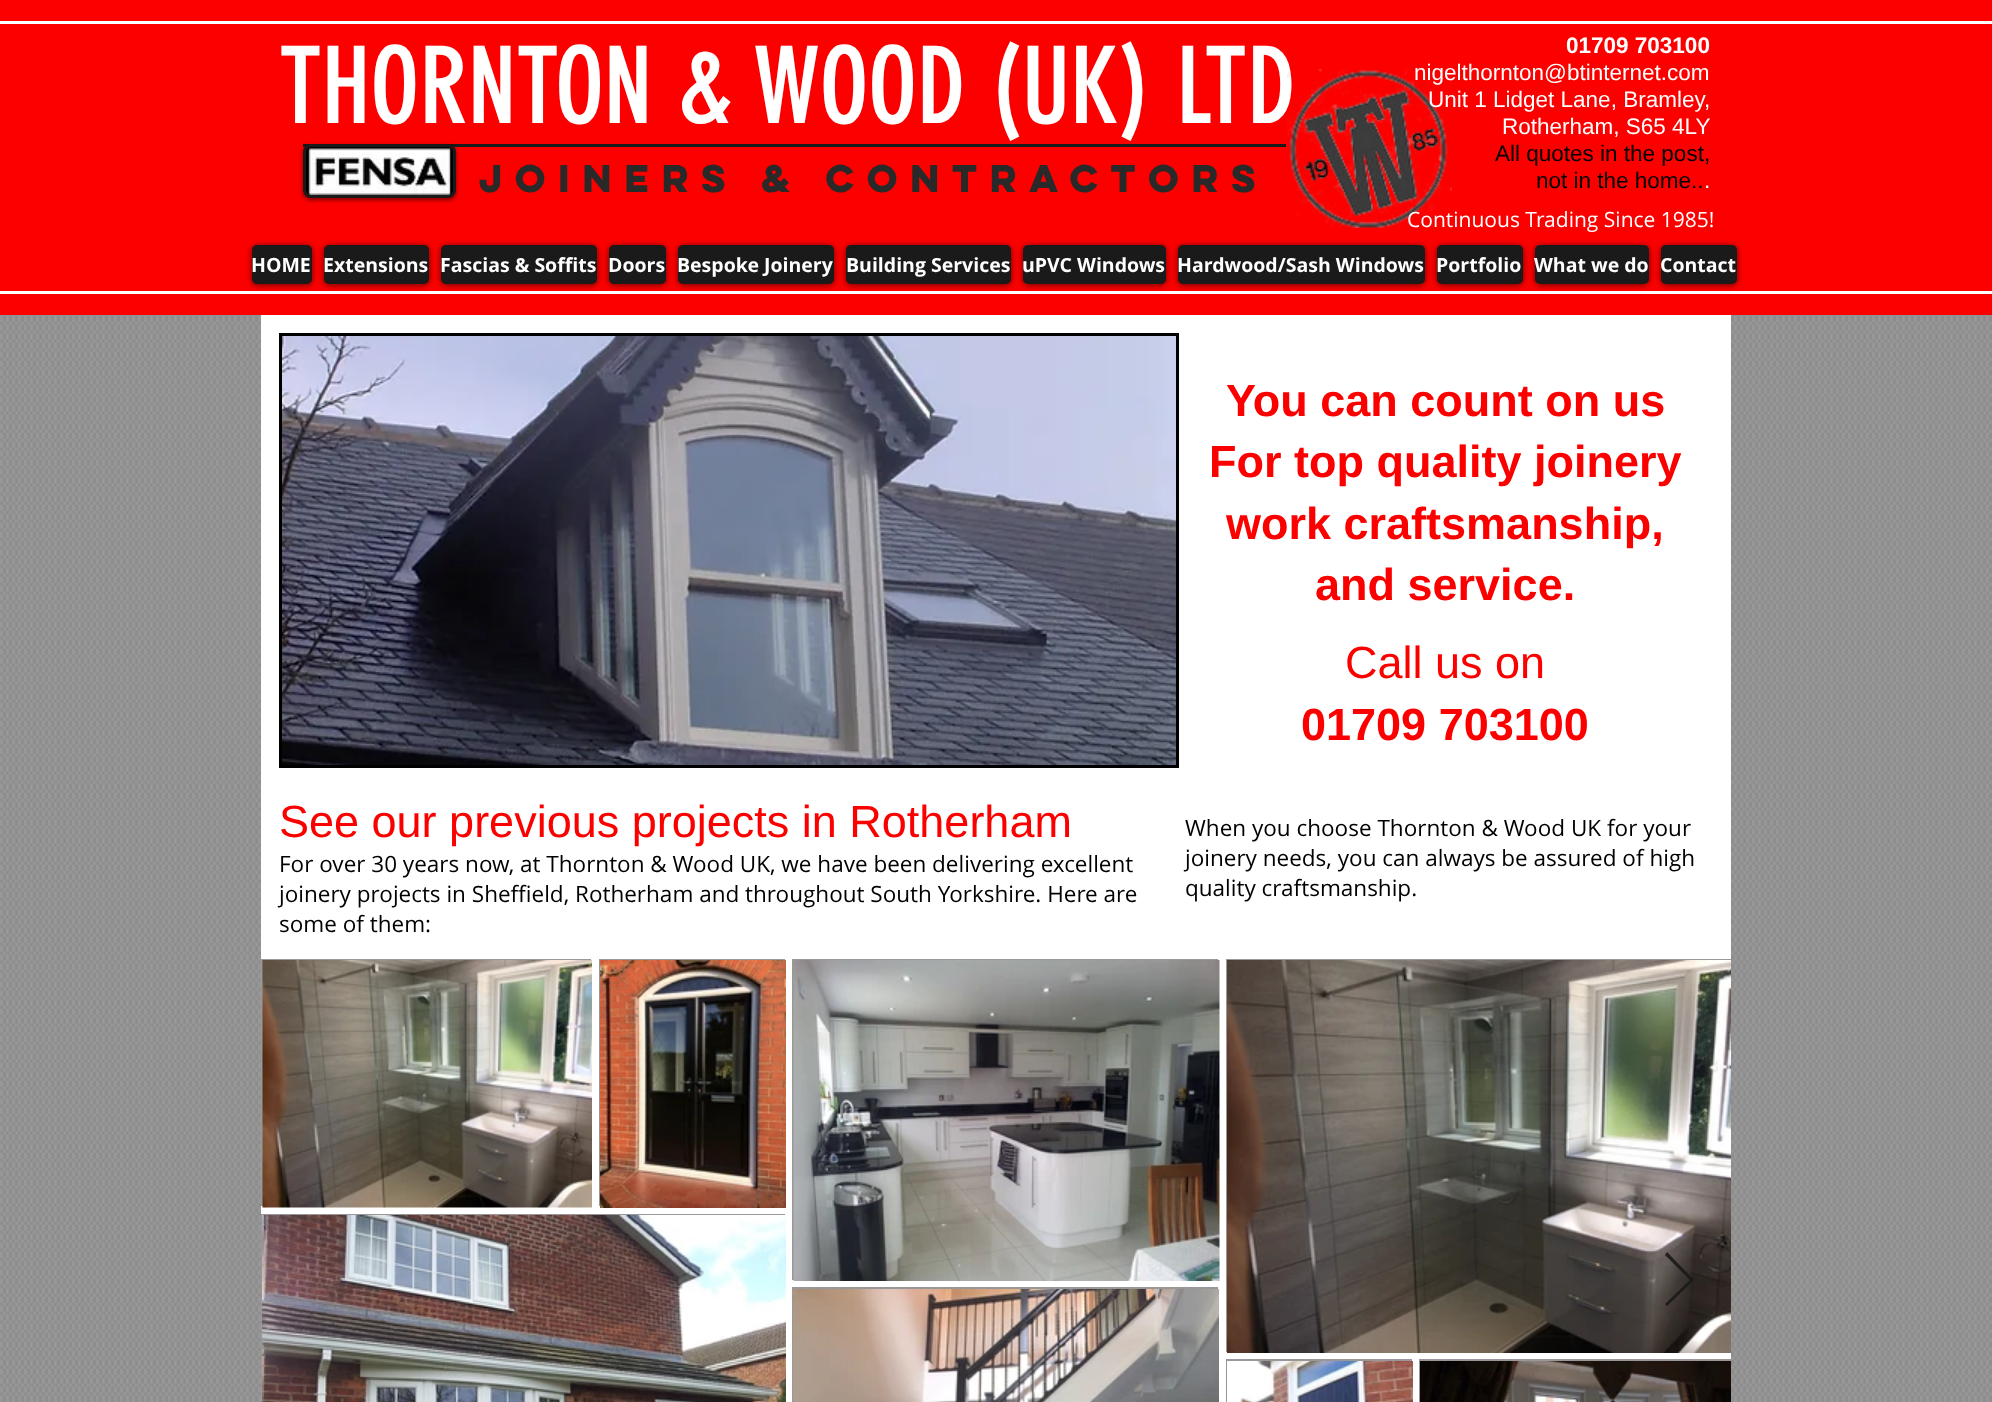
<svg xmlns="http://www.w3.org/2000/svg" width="1992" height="1402">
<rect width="100%" height="100%" fill="#8d8d8d"/>
<rect width="1992" height="315" fill="#fc0000"/>
<rect y="21" width="1992" height="3" fill="#fff"/>
<rect y="291" width="1992" height="3" fill="#fff"/>
<text x="279" y="123" style="font-family:'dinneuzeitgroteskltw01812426';font-size:105px;fill:#fff">THORNTON &amp; WOOD (UK) LTD</text>
<image x="1287" y="69" width="165" height="159" href="media/1.png"/>
<text x="1566" y="53" style="font-family:Liberation Sans;font-size:22.5px;font-weight:bold;fill:#fff">01709 703100</text>
<text x="1414" y="80" style="font-family:Liberation Sans;font-size:22.5px;fill:#fff">nigelthornton@btinternet.com</text>
<text x="1428" y="107" style="font-family:Liberation Sans;font-size:22.5px;fill:#fff">Unit 1 Lidget Lane, Bramley,</text>
<text x="1502" y="134" style="font-family:Liberation Sans;font-size:22.5px;fill:#fff">Rotherham, S65 4LY</text>
<text x="1495" y="161" style="font-family:Liberation Sans;font-size:22.5px;fill:#000">All quotes in the post,</text>
<text x="1536" y="188" style="font-family:Liberation Sans;font-size:22.5px;fill:#000">not in the home..</text>
<text x="1704" y="188" style="font-family:Liberation Sans;font-size:22.5px;fill:#fff">.</text>
<rect x="303" y="144" width="983" height="3" fill="#1a1a1a"/>
<rect x="303" y="146" width="153" height="54" rx="8" fill="#00000080" filter="blur(2px)"/>
<rect x="304.5" y="145.5" width="150" height="51" rx="6.5" fill="none" stroke="#1a1a1a" stroke-width="3"/>
<image x="306" y="147" width="147" height="48" href="media/2.png"/>
<text x="479" y="192" style="font-family:'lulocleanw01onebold';font-size:34.5px;font-weight:bold;letter-spacing:5.2px;fill:#292929">JOINERS &amp; CONTRACTORS</text>
<text x="1407" y="227" style="font-family:Open Sans;font-size:21px;fill:#fff">Continuous Trading Since 1985!</text>
<rect x="252" y="246" width="60" height="39" rx="5" fill="#00000099" filter="blur(3px)"/>
<rect x="252" y="245" width="60" height="39" rx="5" fill="#1a1a1a"/>
<text x="251" y="272" style="font-family:Open Sans;font-size:19.5px;font-weight:bold;fill:#fff">HOME</text>
<rect x="324" y="246" width="105" height="39" rx="5" fill="#00000099" filter="blur(3px)"/>
<rect x="324" y="245" width="105" height="39" rx="5" fill="#1a1a1a"/>
<text x="323" y="272" style="font-family:Open Sans;font-size:19.5px;font-weight:bold;fill:#fff">Extensions</text>
<rect x="441" y="246" width="156" height="39" rx="5" fill="#00000099" filter="blur(3px)"/>
<rect x="441" y="245" width="156" height="39" rx="5" fill="#1a1a1a"/>
<text x="440" y="272" style="font-family:Open Sans;font-size:19.5px;font-weight:bold;fill:#fff">Fascias &amp; Soffits</text>
<rect x="609" y="246" width="57" height="39" rx="5" fill="#00000099" filter="blur(3px)"/>
<rect x="609" y="245" width="57" height="39" rx="5" fill="#1a1a1a"/>
<text x="608" y="272" style="font-family:Open Sans;font-size:19.5px;font-weight:bold;fill:#fff">Doors</text>
<rect x="678" y="246" width="156" height="39" rx="5" fill="#00000099" filter="blur(3px)"/>
<rect x="678" y="245" width="156" height="39" rx="5" fill="#1a1a1a"/>
<text x="677" y="272" style="font-family:Open Sans;font-size:19.5px;font-weight:bold;fill:#fff">Bespoke Joinery</text>
<rect x="846" y="246" width="165" height="39" rx="5" fill="#00000099" filter="blur(3px)"/>
<rect x="846" y="245" width="165" height="39" rx="5" fill="#1a1a1a"/>
<text x="846" y="272" style="font-family:Open Sans;font-size:19.5px;font-weight:bold;fill:#fff">Building Services</text>
<rect x="1023" y="246" width="143" height="39" rx="5" fill="#00000099" filter="blur(3px)"/>
<rect x="1023" y="245" width="143" height="39" rx="5" fill="#1a1a1a"/>
<text x="1022" y="272" style="font-family:Open Sans;font-size:19.5px;font-weight:bold;fill:#fff">uPVC Windows</text>
<rect x="1178" y="246" width="247" height="39" rx="5" fill="#00000099" filter="blur(3px)"/>
<rect x="1178" y="245" width="247" height="39" rx="5" fill="#1a1a1a"/>
<text x="1177" y="272" style="font-family:Open Sans;font-size:19.5px;font-weight:bold;fill:#fff">Hardwood/Sash Windows</text>
<rect x="1437" y="246" width="86" height="39" rx="5" fill="#00000099" filter="blur(3px)"/>
<rect x="1437" y="245" width="86" height="39" rx="5" fill="#1a1a1a"/>
<text x="1436" y="272" style="font-family:Open Sans;font-size:19.5px;font-weight:bold;fill:#fff">Portfolio</text>
<rect x="1535" y="246" width="114" height="39" rx="5" fill="#00000099" filter="blur(3px)"/>
<rect x="1535" y="245" width="114" height="39" rx="5" fill="#1a1a1a"/>
<text x="1534" y="272" style="font-family:Open Sans;font-size:19.5px;font-weight:bold;fill:#fff">What we do</text>
<rect x="1661" y="246" width="76" height="39" rx="5" fill="#00000099" filter="blur(3px)"/>
<rect x="1661" y="245" width="76" height="39" rx="5" fill="#1a1a1a"/>
<text x="1660" y="272" style="font-family:Open Sans;font-size:19.5px;font-weight:bold;fill:#fff">Contact</text>
<image x="0" y="315" width="1992" height="1087" href="media/12.png"/>
<rect x="261" y="315" width="1470" height="1087" fill="#fff"/>
<rect x="279" y="333" width="900" height="435" fill="#000"/>
<image x="282" y="336" width="894" height="429" href="media/3.png"/>
<text x="1226" y="416" style="font-family:Liberation Sans;font-size:45px;font-weight:bold;fill:#fc0000">You can count on us</text>
<text x="1209" y="477" style="font-family:Liberation Sans;font-size:45px;font-weight:bold;fill:#fc0000">For top quality joinery</text>
<text x="1226" y="539" style="font-family:Liberation Sans;font-size:45px;font-weight:bold;fill:#fc0000">work craftsmanship,</text>
<text x="1315" y="600" style="font-family:Liberation Sans;font-size:45px;font-weight:bold;fill:#fc0000">and service.</text>
<text x="1345" y="678" style="font-family:Liberation Sans;font-size:45px;fill:#fc0000">Call us on</text>
<text x="1301" y="740" style="font-family:Liberation Sans;font-size:45px;font-weight:bold;fill:#fc0000">01709 703100</text>
<text x="279" y="837" style="font-family:Liberation Sans;font-size:45px;fill:#fc0000">See our previous projects in Rotherham</text>
<text x="279" y="872" style="font-family:Open Sans;font-size:22.5px;fill:#000">For over 30 years now, at Thornton &amp; Wood UK, we have been delivering excellent</text>
<text x="279" y="902" style="font-family:Open Sans;font-size:22.5px;fill:#000">joinery projects in Sheffield, Rotherham and throughout South Yorkshire. Here are</text>
<text x="279" y="932" style="font-family:Open Sans;font-size:22.5px;fill:#000">some of them:</text>
<text x="1185" y="836" style="font-family:Open Sans;font-size:22.5px;fill:#000">When you choose Thornton &amp; Wood UK for your</text>
<text x="1185" y="866" style="font-family:Open Sans;font-size:22.5px;fill:#000">joinery needs, you can always be assured of high</text>
<text x="1185" y="896" style="font-family:Open Sans;font-size:22.5px;fill:#000">quality craftsmanship.</text>
<rect x="261" y="959" width="330" height="247" fill="#999797"/>
<image x="262" y="960" width="330" height="248" href="media/4.png"/>
<rect x="599" y="959" width="186" height="247" fill="#999797"/>
<image x="600" y="960" width="186" height="248" href="media/5.png"/>
<rect x="261" y="1214" width="524" height="188" fill="#999797"/>
<image x="262" y="1215" width="524" height="187" href="media/6.png"/>
<rect x="792" y="959" width="426" height="321" fill="#999797"/>
<image x="793" y="960" width="427" height="321" href="media/7.png"/>
<rect x="792" y="1287" width="426" height="115" fill="#999797"/>
<image x="793" y="1289" width="426" height="113" href="media/8.png"/>
<rect x="1226" y="959" width="505" height="393" fill="#999797"/>
<image x="1227" y="960" width="504" height="393" href="media/9.png"/>
<rect x="1226" y="1359" width="186" height="43" fill="#999797"/>
<image x="1227" y="1361" width="186" height="41" href="media/10.png"/>
<rect x="1419" y="1359" width="312" height="43" fill="#999797"/>
<image x="1420" y="1361" width="311" height="41" href="media/11.png"/>
<path d="M1665 1255l2-3l27 28l-27 26l-2-2l25-24z" fill="#1a1a1ae6"/>
</svg>
